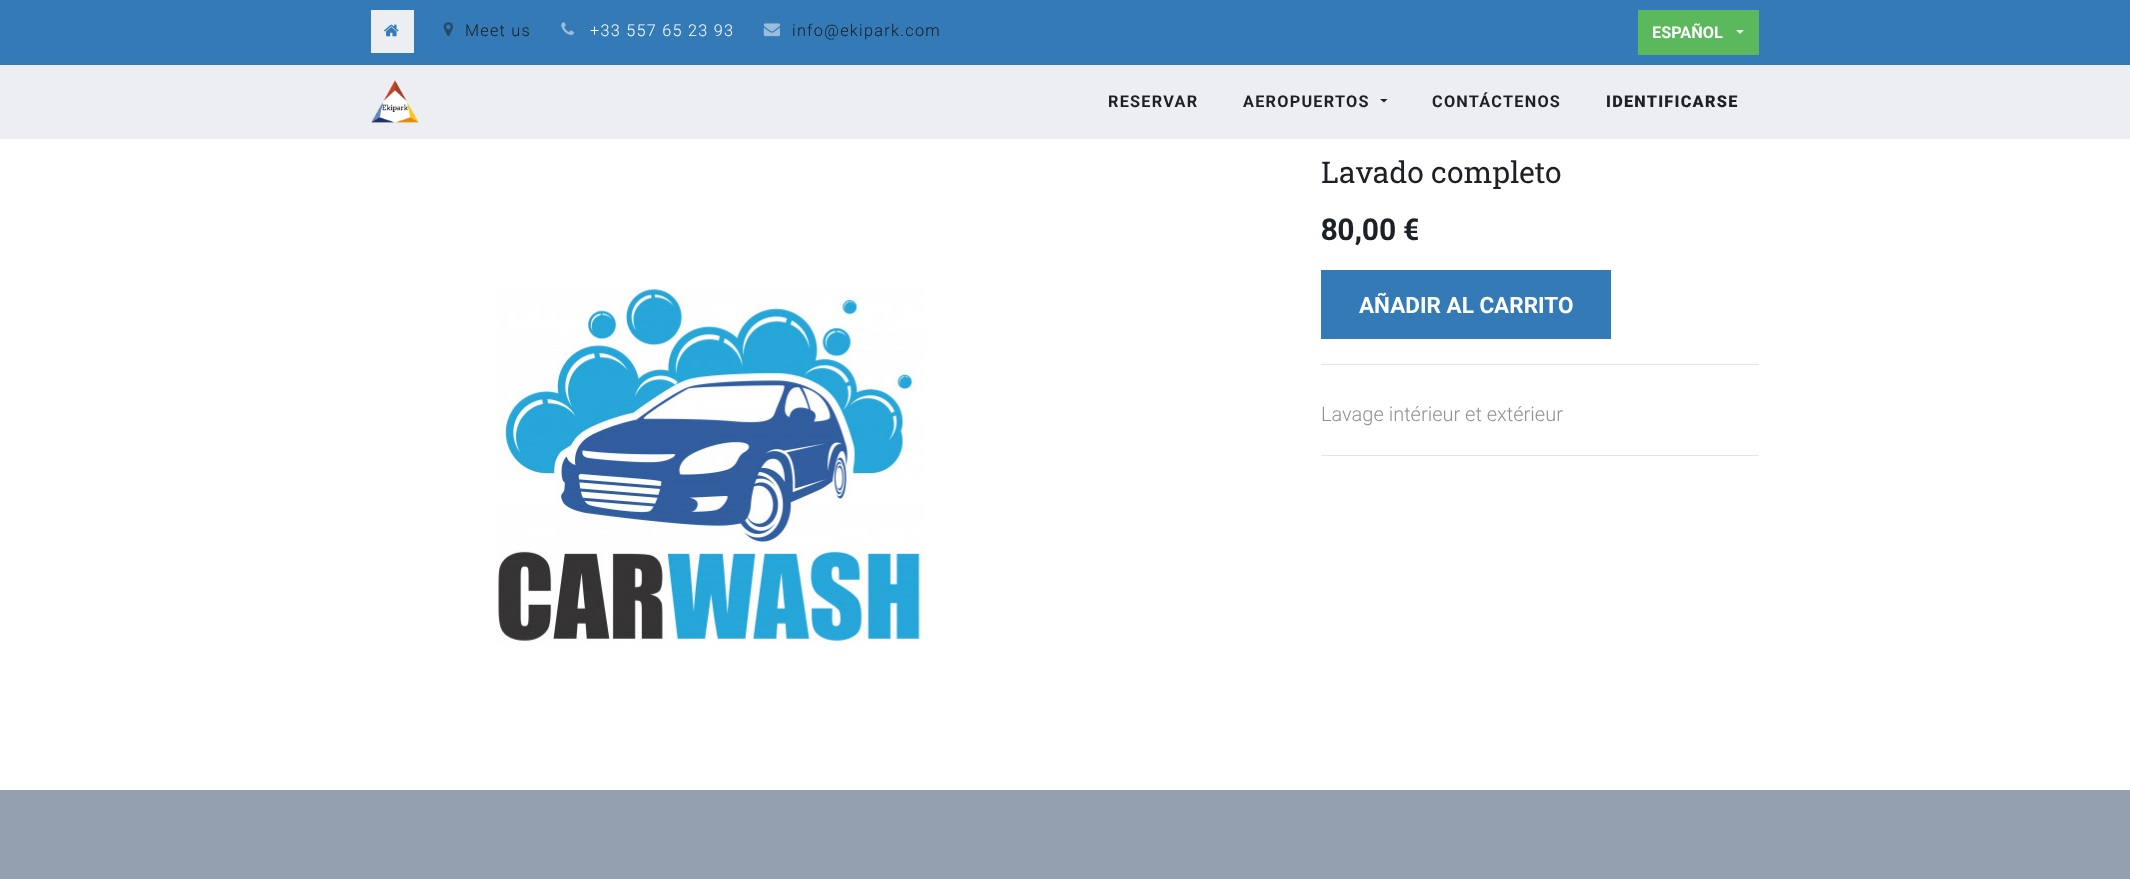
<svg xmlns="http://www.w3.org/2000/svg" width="2130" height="879">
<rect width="100%" height="100%" fill="#fff"/>
<rect width="2130" height="65" fill="#337ab7"/>
<rect x="371" y="10" width="43" height="43" fill="#eceef1"/>
<image x="384" y="24" width="15" height="13" href="media/1.png"/>
<image x="443" y="22" width="10" height="15" href="media/2.png"/>
<text x="465" y="36" style="font-family:Roboto;font-size:16.25px;font-weight:300;letter-spacing:1.25px;fill:#191a1a">Meet us</text>
<image x="561" y="22" width="13" height="13" href="media/3.png"/>
<text x="590" y="36" style="font-family:Roboto;font-size:16.25px;font-weight:300;letter-spacing:1.25px;fill:#fff">+33 557 65 23 93</text>
<image x="763" y="23" width="17" height="14" href="media/4.png"/>
<text x="792" y="36" style="font-family:Roboto;font-size:16.25px;font-weight:300;letter-spacing:1.25px;fill:#191a1a">info@ekipark.com</text>
<rect x="1638" y="10" width="121" height="45" fill="#5cb85c"/>
<text x="1652" y="38" style="font-family:Roboto;font-size:16.25px;font-weight:bold;fill:#fff">ESPAÑOL</text>
<path d="M1736 30h8l-4 4z" fill="#eceef1"/>
<rect y="65" width="2130" height="74" fill="#eceef1"/>
<image x="371" y="80" width="48" height="43" href="media/5.png"/>
<text x="1108" y="107" style="font-family:Roboto;font-size:16.25px;font-weight:bold;letter-spacing:1.25px;fill:#1d2127">RESERVAR</text>
<text x="1243" y="107" style="font-family:Roboto;font-size:16.25px;font-weight:bold;letter-spacing:1.25px;fill:#1d2127">AEROPUERTOS</text>
<path d="M1380 99h7.5l-3.5 3.5z" fill="#1d2127"/>
<text x="1432" y="107" style="font-family:Roboto;font-size:16.25px;font-weight:bold;letter-spacing:1.25px;fill:#1d2127">CONTÁCTENOS</text>
<text x="1606" y="107" style="font-family:Roboto;font-size:16.25px;font-weight:900;letter-spacing:1.25px;fill:#1d2127">IDENTIFICARSE</text>
<image x="496" y="288" width="428" height="359" href="media/6.png"/>
<text x="1321" y="183" style="font-family:Roboto Slab;font-size:30px;fill:#1d2127">Lavado completo</text>
<text x="1321" y="240" style="font-family:Roboto Slab;font-size:30px;font-weight:bold;fill:#1d2127">80,00 €</text>
<rect x="1321" y="270" width="290" height="69" fill="#337ab7"/>
<text x="1359" y="313" style="font-family:Roboto;font-size:22.5px;font-weight:bold;fill:#fff">AÑADIR AL CARRITO</text>
<rect x="1321" y="364" width="438" height="1" fill="#e6e6e6"/>
<text x="1321" y="421" style="font-family:Roboto;font-size:20px;font-weight:300;fill:#8e9093">Lavage intérieur et extérieur</text>
<rect x="1321" y="455" width="438" height="1" fill="#e6e6e6"/>
<rect y="790" width="2130" height="89" fill="#949faf"/>
</svg>
